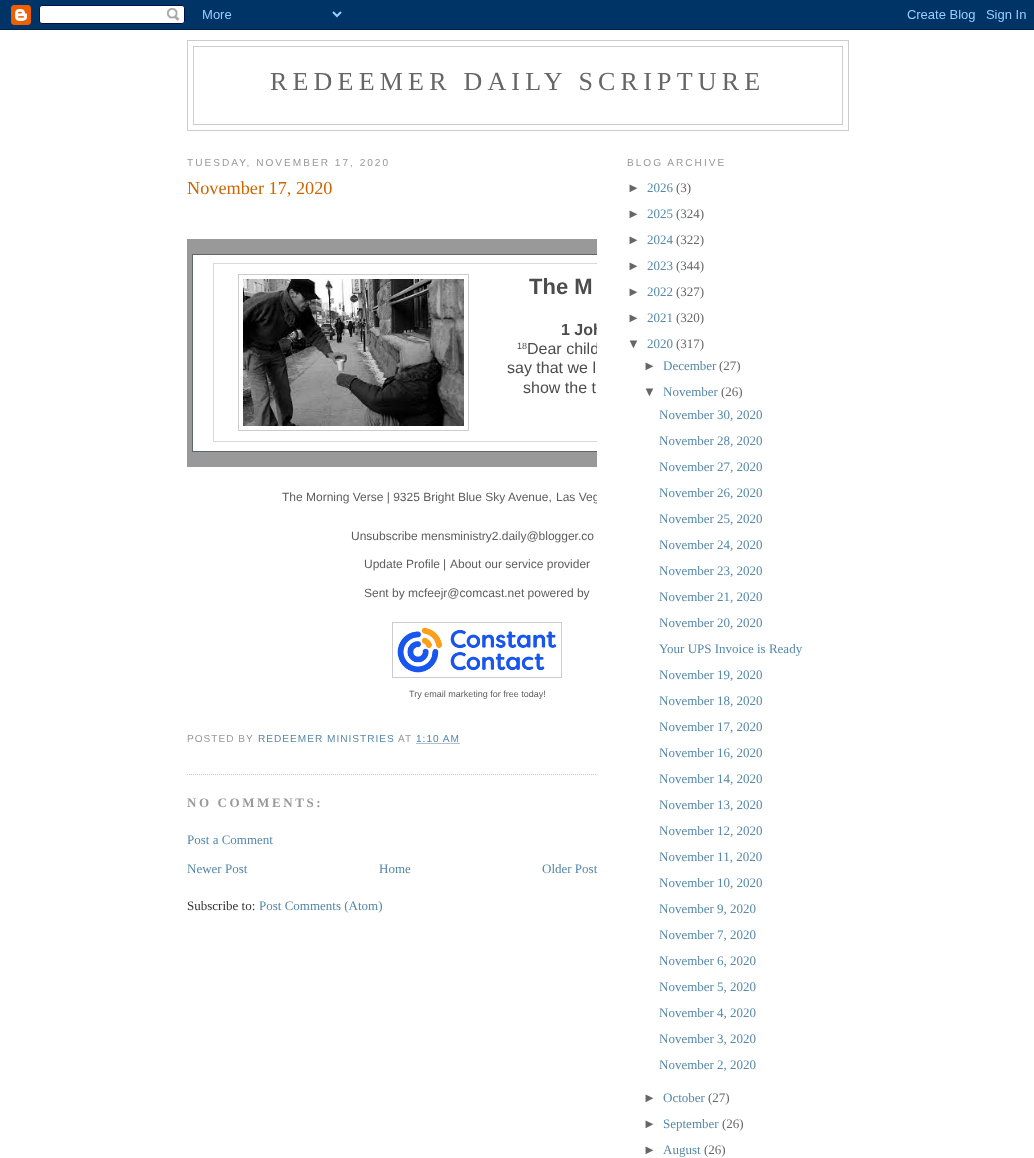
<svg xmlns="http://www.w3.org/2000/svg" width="1034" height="1158">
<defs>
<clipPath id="clip1"><rect x="187" y="141" width="410" height="820"/></clipPath>
</defs>
<rect width="100%" height="100%" fill="#fff"/>
<image x="0" y="0" width="1034" height="30" href="media/1.png"/>
<rect x="187.5" y="40.5" width="661" height="90" fill="none" stroke="#ccc"/>
<rect x="193.5" y="46.5" width="649" height="78" fill="none" stroke="#ccc"/>
<text x="270" y="90" style="font-family:Liberation Serif;font-size:26px;letter-spacing:5.2px;fill:#666">REDEEMER DAILY SCRIPTURE</text>
<text x="187" y="166" style="font-family:Liberation Sans;font-size:10.1px;letter-spacing:2px;fill:#999">TUESDAY, NOVEMBER 17, 2020</text>
<path d="M187 774.5h410" fill="none" stroke="#ccc" stroke-dasharray="1 1"/>
<text x="187" y="194" style="font-family:Liberation Serif;font-size:18.25px;fill:#c60">November 17, 2020</text>
<rect x="187" y="239" width="410" height="228" fill="#999"/>
<rect x="192" y="254" width="405" height="198" fill="#5e666a"/>
<rect x="193" y="255" width="404" height="196" fill="#fff"/>
<rect x="213" y="263" width="384" height="179" fill="#d9d9d9"/>
<rect x="214" y="264" width="383" height="177" fill="#fff"/>
<rect x="238.5" y="274.5" width="230" height="156" fill="none" stroke="#ccc"/>
<image x="243" y="279" width="221" height="147" href="media/2.png"/>
<text x="529" y="294" style="font-family:Liberation Sans;font-size:22px;font-weight:bold;fill:#4c4c4c">The M</text>
<g clip-path="url(#clip1)">
<text x="561" y="335" style="font-family:Liberation Sans;font-size:16px;font-weight:bold;fill:#4c4c4c">1 Joh</text>
</g>
<text x="517" y="349" style="font-family:Liberation Sans;font-size:9px;fill:#4c4c4c">18</text>
<g clip-path="url(#clip1)">
<text x="527" y="354" style="font-family:Liberation Sans;font-size:16px;fill:#4c4c4c">Dear child</text>
</g>
<text x="507" y="373" style="font-family:Liberation Sans;font-size:16px;fill:#4c4c4c">say that we l</text>
<text x="523" y="393" style="font-family:Liberation Sans;font-size:16px;fill:#4c4c4c">show the t</text>
<text x="282" y="501" style="font-family:Liberation Sans;font-size:12px;fill:#5d5d5d">The Morning Verse | 9325 Bright Blue Sky Avenue,</text>
<g clip-path="url(#clip1)">
<text x="556" y="501" style="font-family:Liberation Sans;font-size:12px;fill:#5d5d5d">Las Veg</text>
</g>
<text x="351" y="540" style="font-family:Liberation Sans;font-size:12px;fill:#5d5d5d">Unsubscribe mensministry2.daily@blogger.co</text>
<text x="364" y="568" style="font-family:Liberation Sans;font-size:12px;fill:#5d5d5d">Update Profile</text>
<text x="443" y="568" style="font-family:Liberation Sans;font-size:12px;fill:#5d5d5d">|</text>
<text x="450" y="568" style="font-family:Liberation Sans;font-size:12px;fill:#5d5d5d">About our service provider</text>
<text x="364" y="597" style="font-family:Liberation Sans;font-size:12px;fill:#5d5d5d">Sent by mcfeejr@comcast.net powered by</text>
<rect x="392.5" y="622.5" width="169" height="55" fill="none" stroke="#ccc"/>
<image x="397" y="627" width="160" height="46" href="media/3.png"/>
<text x="409" y="697" style="font-family:Liberation Sans;font-size:9px;fill:#5d5d5d">Try email marketing for free today!</text>
<text x="187" y="742" style="font-family:Liberation Sans;font-size:10.1px;letter-spacing:1px;fill:#999">POSTED BY</text>
<text x="258" y="742" style="font-family:Liberation Sans;font-size:10.1px;letter-spacing:1px;fill:#58a">REDEEMER MINISTRIES</text>
<text x="398" y="742" style="font-family:Liberation Sans;font-size:10.1px;letter-spacing:1px;fill:#999">AT</text>
<text x="416" y="742" style="font-family:Liberation Sans;font-size:10.1px;letter-spacing:1px;fill:#58a">1:10 AM</text>
<path d="M416.5 743.5h44" fill="none" stroke="#58a" stroke-dasharray="1 1"/>
<text x="187" y="807" style="font-family:Liberation Serif;font-size:13px;font-weight:bold;letter-spacing:2.6px;fill:#999">NO COMMENTS:</text>
<text x="187" y="844" style="font-family:Liberation Serif;font-size:13px;fill:#58a">Post a Comment</text>
<text x="187" y="873" style="font-family:Liberation Serif;font-size:13px;fill:#58a">Newer Post</text>
<text x="379" y="873" style="font-family:Liberation Serif;font-size:13px;fill:#58a">Home</text>
<text x="542" y="873" style="font-family:Liberation Serif;font-size:13px;fill:#58a">Older Post</text>
<text x="187" y="910" style="font-family:Liberation Serif;font-size:13px;fill:#333">Subscribe to:</text>
<text x="259" y="910" style="font-family:Liberation Serif;font-size:13px;fill:#58a">Post Comments (Atom)</text>
<text x="627" y="166" style="font-family:Liberation Sans;font-size:10.1px;letter-spacing:2px;fill:#999">BLOG ARCHIVE</text>
<text x="627" y="192" style="font-family:Liberation Sans;font-size:13px;fill:#666">►</text>
<text x="647" y="192" style="font-family:Liberation Serif;font-size:13px;fill:#58a">2026</text>
<text x="676" y="192" style="font-family:Liberation Serif;font-size:13px;fill:#666">(3)</text>
<text x="627" y="218" style="font-family:Liberation Sans;font-size:13px;fill:#666">►</text>
<text x="647" y="218" style="font-family:Liberation Serif;font-size:13px;fill:#58a">2025</text>
<text x="676" y="218" style="font-family:Liberation Serif;font-size:13px;fill:#666">(324)</text>
<text x="627" y="244" style="font-family:Liberation Sans;font-size:13px;fill:#666">►</text>
<text x="647" y="244" style="font-family:Liberation Serif;font-size:13px;fill:#58a">2024</text>
<text x="676" y="244" style="font-family:Liberation Serif;font-size:13px;fill:#666">(322)</text>
<text x="627" y="270" style="font-family:Liberation Sans;font-size:13px;fill:#666">►</text>
<text x="647" y="270" style="font-family:Liberation Serif;font-size:13px;fill:#58a">2023</text>
<text x="676" y="270" style="font-family:Liberation Serif;font-size:13px;fill:#666">(344)</text>
<text x="627" y="296" style="font-family:Liberation Sans;font-size:13px;fill:#666">►</text>
<text x="647" y="296" style="font-family:Liberation Serif;font-size:13px;fill:#58a">2022</text>
<text x="676" y="296" style="font-family:Liberation Serif;font-size:13px;fill:#666">(327)</text>
<text x="627" y="322" style="font-family:Liberation Sans;font-size:13px;fill:#666">►</text>
<text x="647" y="322" style="font-family:Liberation Serif;font-size:13px;fill:#58a">2021</text>
<text x="676" y="322" style="font-family:Liberation Serif;font-size:13px;fill:#666">(320)</text>
<text x="627" y="348" style="font-family:Liberation Sans;font-size:13px;fill:#666">▼</text>
<text x="647" y="348" style="font-family:Liberation Serif;font-size:13px;fill:#58a">2020</text>
<text x="676" y="348" style="font-family:Liberation Serif;font-size:13px;fill:#666">(317)</text>
<text x="643" y="370" style="font-family:Liberation Sans;font-size:13px;fill:#666">►</text>
<text x="663" y="370" style="font-family:Liberation Serif;font-size:13px;fill:#58a">December</text>
<text x="719" y="370" style="font-family:Liberation Serif;font-size:13px;fill:#666">(27)</text>
<text x="643" y="396" style="font-family:Liberation Sans;font-size:13px;fill:#666">▼</text>
<text x="663" y="396" style="font-family:Liberation Serif;font-size:13px;fill:#58a">November</text>
<text x="721" y="396" style="font-family:Liberation Serif;font-size:13px;fill:#666">(26)</text>
<text x="659" y="419" style="font-family:Liberation Serif;font-size:13px;fill:#58a">November 30, 2020</text>
<text x="659" y="445" style="font-family:Liberation Serif;font-size:13px;fill:#58a">November 28, 2020</text>
<text x="659" y="471" style="font-family:Liberation Serif;font-size:13px;fill:#58a">November 27, 2020</text>
<text x="659" y="497" style="font-family:Liberation Serif;font-size:13px;fill:#58a">November 26, 2020</text>
<text x="659" y="523" style="font-family:Liberation Serif;font-size:13px;fill:#58a">November 25, 2020</text>
<text x="659" y="549" style="font-family:Liberation Serif;font-size:13px;fill:#58a">November 24, 2020</text>
<text x="659" y="575" style="font-family:Liberation Serif;font-size:13px;fill:#58a">November 23, 2020</text>
<text x="659" y="601" style="font-family:Liberation Serif;font-size:13px;fill:#58a">November 21, 2020</text>
<text x="659" y="627" style="font-family:Liberation Serif;font-size:13px;fill:#58a">November 20, 2020</text>
<text x="659" y="653" style="font-family:Liberation Serif;font-size:13px;fill:#58a">Your UPS Invoice is Ready</text>
<text x="659" y="679" style="font-family:Liberation Serif;font-size:13px;fill:#58a">November 19, 2020</text>
<text x="659" y="705" style="font-family:Liberation Serif;font-size:13px;fill:#58a">November 18, 2020</text>
<text x="659" y="731" style="font-family:Liberation Serif;font-size:13px;fill:#58a">November 17, 2020</text>
<text x="659" y="757" style="font-family:Liberation Serif;font-size:13px;fill:#58a">November 16, 2020</text>
<text x="659" y="783" style="font-family:Liberation Serif;font-size:13px;fill:#58a">November 14, 2020</text>
<text x="659" y="809" style="font-family:Liberation Serif;font-size:13px;fill:#58a">November 13, 2020</text>
<text x="659" y="835" style="font-family:Liberation Serif;font-size:13px;fill:#58a">November 12, 2020</text>
<text x="659" y="861" style="font-family:Liberation Serif;font-size:13px;fill:#58a">November 11, 2020</text>
<text x="659" y="887" style="font-family:Liberation Serif;font-size:13px;fill:#58a">November 10, 2020</text>
<text x="659" y="913" style="font-family:Liberation Serif;font-size:13px;fill:#58a">November 9, 2020</text>
<text x="659" y="939" style="font-family:Liberation Serif;font-size:13px;fill:#58a">November 7, 2020</text>
<text x="659" y="965" style="font-family:Liberation Serif;font-size:13px;fill:#58a">November 6, 2020</text>
<text x="659" y="991" style="font-family:Liberation Serif;font-size:13px;fill:#58a">November 5, 2020</text>
<text x="659" y="1017" style="font-family:Liberation Serif;font-size:13px;fill:#58a">November 4, 2020</text>
<text x="659" y="1043" style="font-family:Liberation Serif;font-size:13px;fill:#58a">November 3, 2020</text>
<text x="659" y="1069" style="font-family:Liberation Serif;font-size:13px;fill:#58a">November 2, 2020</text>
<text x="643" y="1102" style="font-family:Liberation Sans;font-size:13px;fill:#666">►</text>
<text x="663" y="1102" style="font-family:Liberation Serif;font-size:13px;fill:#58a">October</text>
<text x="708" y="1102" style="font-family:Liberation Serif;font-size:13px;fill:#666">(27)</text>
<text x="643" y="1128" style="font-family:Liberation Sans;font-size:13px;fill:#666">►</text>
<text x="663" y="1128" style="font-family:Liberation Serif;font-size:13px;fill:#58a">September</text>
<text x="722" y="1128" style="font-family:Liberation Serif;font-size:13px;fill:#666">(26)</text>
<text x="643" y="1154" style="font-family:Liberation Sans;font-size:13px;fill:#666">►</text>
<text x="663" y="1154" style="font-family:Liberation Serif;font-size:13px;fill:#58a">August</text>
<text x="704" y="1154" style="font-family:Liberation Serif;font-size:13px;fill:#666">(26)</text>
</svg>
